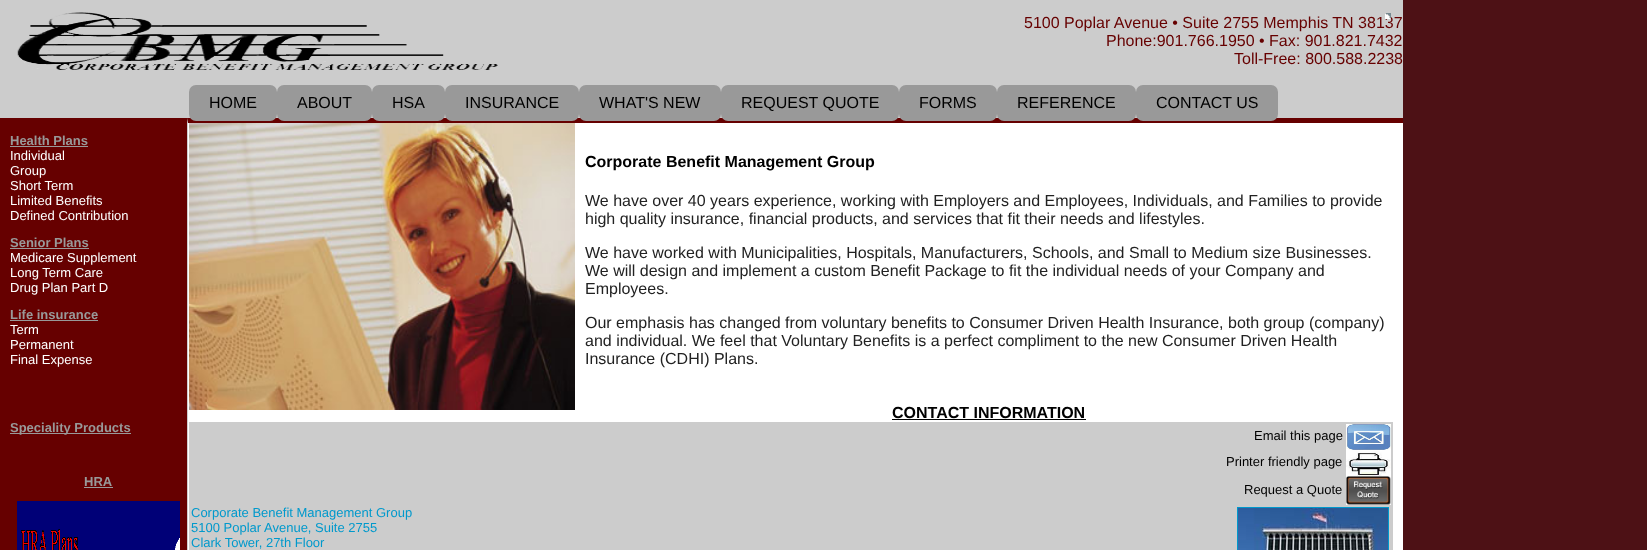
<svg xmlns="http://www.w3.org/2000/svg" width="1647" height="550">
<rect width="100%" height="100%" fill="#4d1115"/>
<rect width="1403" height="118" fill="#ccc"/>
<image x="17" y="12" width="481" height="58" href="media/1.png"/>
<text x="1024" y="28" style="font-family:Liberation Sans;font-size:16px;fill:#600">5100 Poplar Avenue • Suite 2755 Memphis TN 38137</text>
<image x="1385" y="13" width="6" height="6" href="media/2.png"/>
<text x="1106" y="46" style="font-family:Liberation Sans;font-size:16px;fill:#600">Phone:901.766.1950 • Fax: 901.821.7432</text>
<text x="1234" y="64" style="font-family:Liberation Sans;font-size:16px;fill:#600">Toll-Free: 800.588.2238</text>
<path d="M178 118h1225v5h-1224z" fill="#600"/>
<rect x="189" y="85" width="88" height="36" rx="7" fill="#999"/>
<text x="209" y="108" style="font-family:Liberation Sans;font-size:16px;fill:#000">HOME</text>
<rect x="277" y="85" width="95" height="36" rx="7" fill="#999"/>
<text x="297" y="108" style="font-family:Liberation Sans;font-size:16px;fill:#000">ABOUT</text>
<rect x="372" y="85" width="73" height="36" rx="7" fill="#999"/>
<text x="392" y="108" style="font-family:Liberation Sans;font-size:16px;fill:#000">HSA</text>
<rect x="445" y="85" width="134" height="36" rx="7" fill="#999"/>
<text x="465" y="108" style="font-family:Liberation Sans;font-size:16px;fill:#000">INSURANCE</text>
<rect x="579" y="85" width="142" height="36" rx="7" fill="#999"/>
<text x="599" y="108" style="font-family:Liberation Sans;font-size:16px;fill:#000">WHAT'S NEW</text>
<rect x="721" y="85" width="178" height="36" rx="7" fill="#999"/>
<text x="741" y="108" style="font-family:Liberation Sans;font-size:16px;fill:#000">REQUEST QUOTE</text>
<rect x="899" y="85" width="98" height="36" rx="7" fill="#999"/>
<text x="919" y="108" style="font-family:Liberation Sans;font-size:16px;fill:#000">FORMS</text>
<rect x="997" y="85" width="139" height="36" rx="7" fill="#999"/>
<text x="1017" y="108" style="font-family:Liberation Sans;font-size:16px;fill:#000">REFERENCE</text>
<rect x="1136" y="85" width="142" height="36" rx="7" fill="#999"/>
<text x="1156" y="108" style="font-family:Liberation Sans;font-size:16px;fill:#000">CONTACT US</text>
<rect y="118" width="188" height="432" fill="#600"/>
<path d="M188 118v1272l-1-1v-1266z" fill="#ccc"/>
<text x="10" y="145" style="font-family:Liberation Sans;font-size:13px;font-weight:bold;fill:#999">Health Plans</text>
<rect x="10" y="146" width="78" height="1" fill="#999"/>
<text x="10" y="160" style="font-family:Liberation Sans;font-size:13px;fill:#fff">Individual</text>
<text x="10" y="175" style="font-family:Liberation Sans;font-size:13px;fill:#fff">Group</text>
<text x="10" y="190" style="font-family:Liberation Sans;font-size:13px;fill:#fff">Short Term</text>
<text x="10" y="205" style="font-family:Liberation Sans;font-size:13px;fill:#fff">Limited Benefits</text>
<text x="10" y="220" style="font-family:Liberation Sans;font-size:13px;fill:#fff">Defined Contribution</text>
<text x="10" y="247" style="font-family:Liberation Sans;font-size:13px;font-weight:bold;fill:#999">Senior Plans</text>
<rect x="10" y="248" width="79" height="1" fill="#999"/>
<text x="10" y="262" style="font-family:Liberation Sans;font-size:13px;fill:#fff">Medicare Supplement</text>
<text x="10" y="277" style="font-family:Liberation Sans;font-size:13px;fill:#fff">Long Term Care</text>
<text x="10" y="292" style="font-family:Liberation Sans;font-size:13px;fill:#fff">Drug Plan Part D</text>
<text x="10" y="319" style="font-family:Liberation Sans;font-size:13px;font-weight:bold;fill:#999">Life insurance</text>
<rect x="10" y="320" width="88" height="1" fill="#999"/>
<text x="10" y="334" style="font-family:Liberation Sans;font-size:13px;fill:#fff">Term</text>
<text x="10" y="349" style="font-family:Liberation Sans;font-size:13px;fill:#fff">Permanent</text>
<text x="10" y="364" style="font-family:Liberation Sans;font-size:13px;fill:#fff">Final Expense</text>
<rect x="10" y="433" width="121" height="1" fill="#999"/>
<text x="10" y="432" style="font-family:Liberation Sans;font-size:13px;font-weight:bold;fill:#999">Speciality Products</text>
<text x="84" y="486" style="font-family:Liberation Sans;font-size:13px;font-weight:bold;fill:#999">HRA</text>
<rect x="84" y="487" width="29" height="1" fill="#999"/>
<image x="17" y="501" width="163" height="49" href="media/3.png"/>
<rect x="188" y="123" width="1215" height="427" fill="#fff"/>
<image x="189" y="123" width="386" height="287" href="media/4.png"/>
<text x="585" y="167" style="font-family:Liberation Sans;font-size:16px;font-weight:bold;fill:#000">Corporate Benefit Management Group</text>
<text x="585" y="206" style="font-family:Liberation Sans;font-size:16px;fill:#222">We have over 40 years experience, working with Employers and Employees, Individuals, and Families to provide</text>
<text x="585" y="224" style="font-family:Liberation Sans;font-size:16px;fill:#222">high quality insurance, financial products, and services that fit their needs and lifestyles.</text>
<text x="585" y="258" style="font-family:Liberation Sans;font-size:16px;fill:#222">We have worked with Municipalities, Hospitals, Manufacturers, Schools, and Small to Medium size Businesses.</text>
<text x="585" y="276" style="font-family:Liberation Sans;font-size:16px;fill:#222">We will design and implement a custom Benefit Package to fit the individual needs of your Company and</text>
<text x="585" y="294" style="font-family:Liberation Sans;font-size:16px;fill:#222">Employees.</text>
<text x="585" y="328" style="font-family:Liberation Sans;font-size:16px;fill:#222">Our emphasis has changed from voluntary benefits to Consumer Driven Health Insurance, both group (company)</text>
<text x="585" y="346" style="font-family:Liberation Sans;font-size:16px;fill:#222">and individual. We feel that Voluntary Benefits is a perfect compliment to the new Consumer Driven Health</text>
<text x="585" y="364" style="font-family:Liberation Sans;font-size:16px;fill:#222">Insurance (CDHI) Plans.</text>
<text x="892" y="418" style="font-family:Liberation Sans;font-size:16px;font-weight:bold;fill:#000">CONTACT INFORMATION</text>
<rect x="892" y="419" width="194" height="1" fill="#000"/>
<rect x="189" y="422" width="1204" height="128" fill="#ccc"/>
<text x="1254" y="440" style="font-family:Liberation Sans;font-size:13px;fill:#000">Email this page</text>
<image x="1346" y="424" width="45" height="26" href="media/5.png"/>
<text x="1226" y="466" style="font-family:Liberation Sans;font-size:13px;fill:#000">Printer friendly page</text>
<image x="1346" y="450" width="45" height="26" href="media/6.png"/>
<text x="1244" y="494" style="font-family:Liberation Sans;font-size:13px;fill:#000">Request a Quote</text>
<image x="1346" y="476" width="45" height="29" href="media/7.png"/>
<text x="191" y="517" style="font-family:Liberation Sans;font-size:13px;fill:#09c">Corporate Benefit Management Group</text>
<rect x="1237.5" y="507.5" width="151" height="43" fill="none" stroke="#09c"/>
<image x="1238" y="508" width="150" height="42" href="media/8.png"/>
<text x="191" y="532" style="font-family:Liberation Sans;font-size:13px;fill:#09c">5100 Poplar Avenue, Suite 2755</text>
<text x="191" y="547" style="font-family:Liberation Sans;font-size:13px;fill:#09c">Clark Tower, 27th Floor</text>
</svg>
